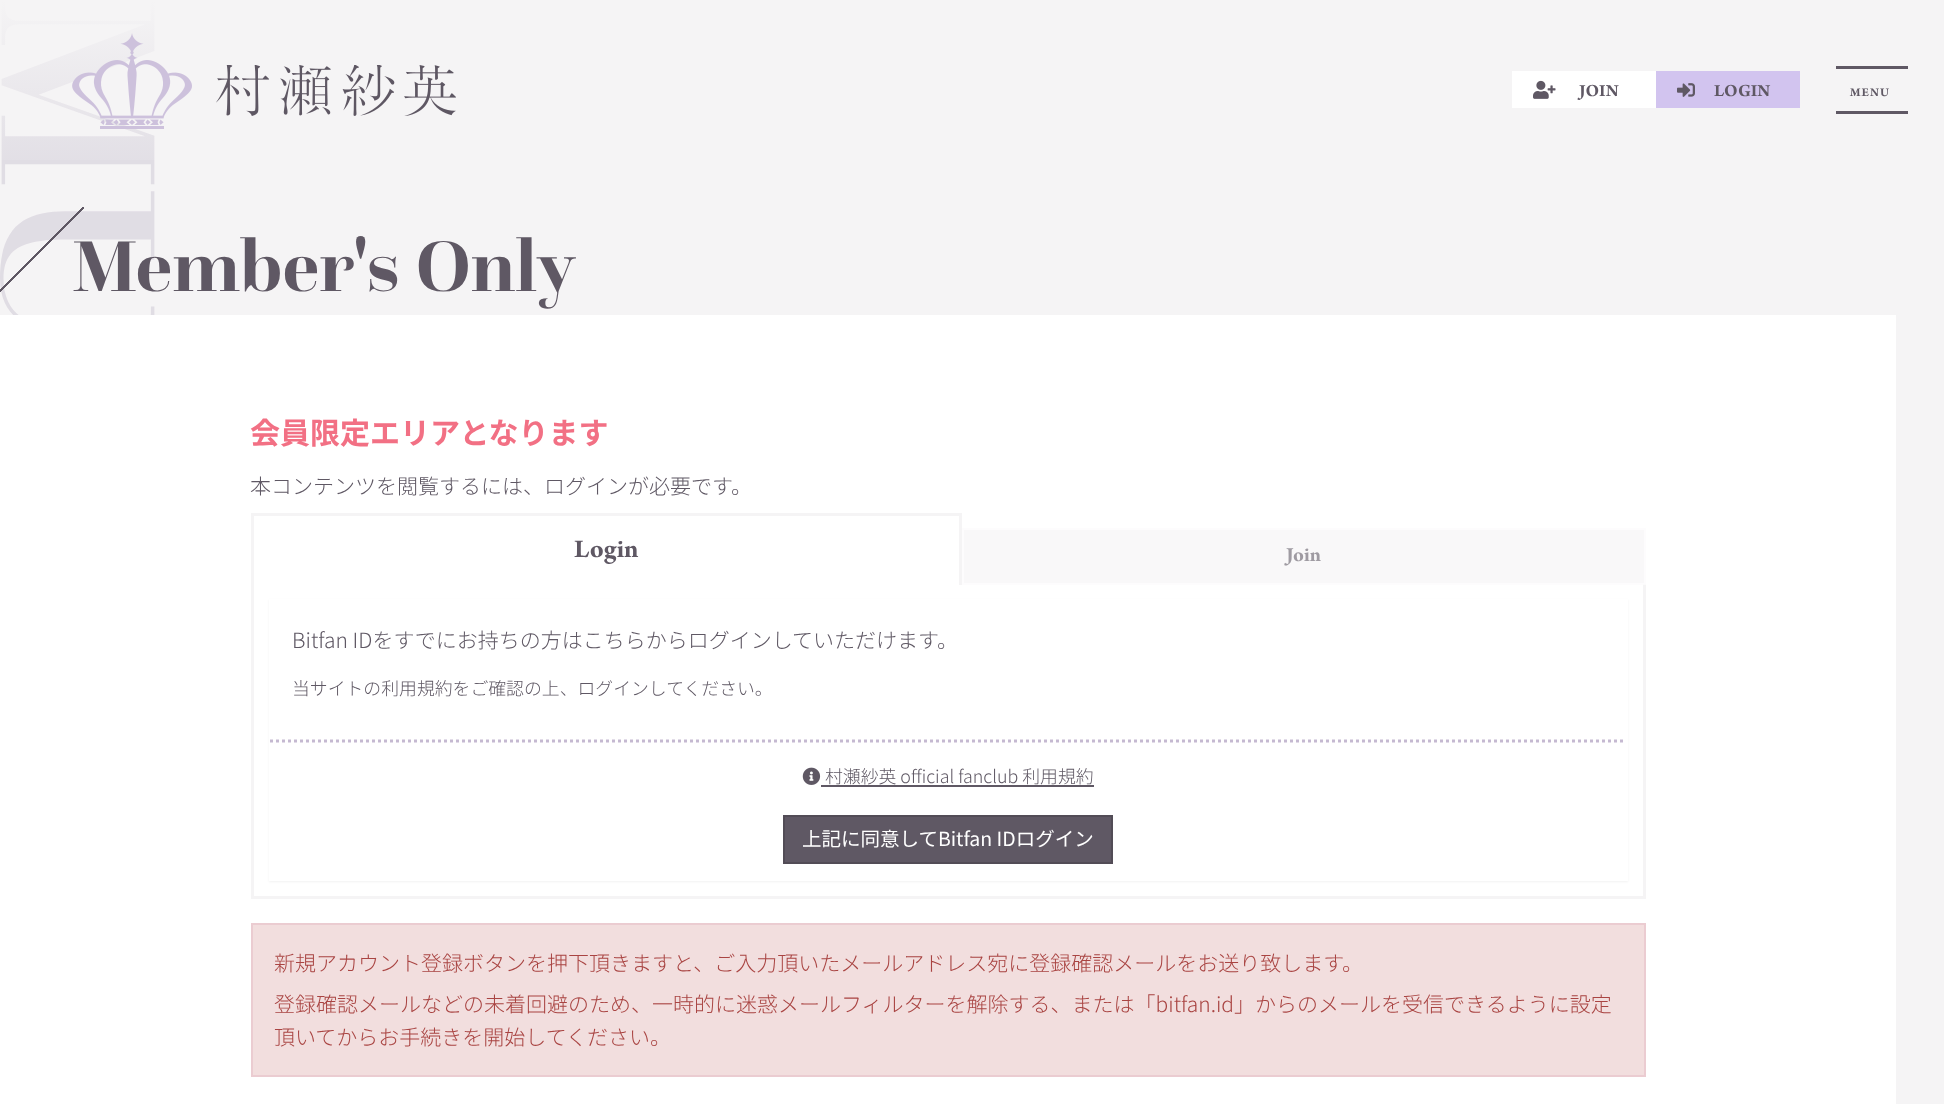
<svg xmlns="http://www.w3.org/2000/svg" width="1944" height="1104">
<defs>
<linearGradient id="g1" gradientUnits="userSpaceOnUse" x1="972" y1="0" x2="972" y2="180"><stop offset="0" stop-color="#f5f4f5"/><stop offset="1" stop-color="#f5f4f5" stop-opacity="0"/></linearGradient>
<linearGradient id="g2" gradientUnits="userSpaceOnUse" x1="84" y1="303" x2="-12" y2="207"><stop offset="0" stop-color="#000" stop-opacity="0"/><stop offset="0.49" stop-color="#5f5864" stop-opacity="0"/><stop offset="0.49" stop-color="#5f5864"/><stop offset="0.51" stop-color="#5f5864"/><stop offset="0.51" stop-color="#5f5864" stop-opacity="0"/><stop offset="1" stop-color="#000" stop-opacity="0"/></linearGradient>
</defs>
<rect width="100%" height="100%" fill="#f5f4f5"/>
<image x="0" y="1" width="155" height="314" href="media/1.png"/>
<rect x="1" y="1" width="154" height="159" fill="url(#g1)"/>
<image x="72" y="33" width="120" height="96" href="media/2.png"/>
<image x="216" y="65" width="240" height="51" href="media/3.png"/>
<rect x="1512" y="71" width="144" height="37" fill="#fff"/>
<image x="1533" y="80" width="23" height="19" href="media/4.png"/>
<text x="1579" y="96" style="font-family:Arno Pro;font-size:18px;font-weight:bold;fill:#5f5864">JOIN</text>
<rect x="1656" y="71" width="144" height="37" fill="#d2c4ef"/>
<image x="1677" y="83" width="18" height="14" href="media/5.png"/>
<text x="1714" y="96" style="font-family:Arno Pro;font-size:18px;font-weight:bold;fill:#5f5864">LOGIN</text>
<rect x="1836" y="66" width="72" height="3" fill="#5f5864"/>
<text x="1850" y="96" style="font-family:Arno Pro;font-size:12.5px;font-weight:bold;letter-spacing:1px;fill:#5f5864">MENU</text>
<rect x="1836" y="111" width="72" height="3" fill="#5f5864"/>
<rect y="207" width="84" height="85" fill="url(#g2)"/>
<text x="72" y="291" style="font-family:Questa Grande;font-size:75px;font-weight:bold;fill:#5f5864">Member's Only</text>
<rect y="315" width="1896" height="789" fill="#fff"/>
<rect x="962" y="528" width="684" height="57" fill="#f9f8f9"/>
<text x="250" y="444" style="font-family:Noto Sans JP;font-size:30px;font-weight:bold;fill:#f27084">会員限定エリアとなります</text>
<text x="250" y="494" style="font-family:Noto Sans JP;font-size:21px;font-weight:300;fill:#5f5864">本コンテンツを閲覧するには、ログインが必要です。</text>
<rect x="251" y="513" width="711" height="3" fill="#f5f4f5"/>
<rect x="959" y="513" width="3" height="72" fill="#f5f4f5"/>
<rect x="1643" y="584" width="3" height="315" fill="#f5f4f5"/>
<rect x="251" y="896" width="1395" height="3" fill="#f5f4f5"/>
<rect x="251" y="584" width="3" height="315" fill="#f5f4f5"/>
<rect x="251" y="513" width="3" height="72" fill="#f5f4f5"/>
<text x="574" y="557" style="font-family:Arno Pro;font-size:27px;font-weight:bold;fill:#5f5864">Login</text>
<rect x="963" y="529" width="682" height="55" fill="none" stroke="#ffffff99" stroke-width="2"/>
<text x="1286" y="561" style="font-family:Arno Pro;font-size:21px;font-weight:bold;fill:#9f9ba2">Join</text>
<rect x="269" y="600" width="1359" height="282" fill="#0000000d" filter="blur(1px)"/>
<rect x="269" y="599" width="1359" height="282" fill="#fff"/>
<text x="292" y="648" style="font-family:Noto Sans JP;font-size:21px;font-weight:300;fill:#5f5864">Bitfan IDをすでにお持ちの方はこちらからログインしていただけます。</text>
<text x="292" y="695" style="font-family:Noto Sans JP;font-size:17.85px;font-weight:300;fill:#5f5864">当サイトの利用規約をご確認の上、ログインしてください。</text>
<path d="M270 741h1356" fill="none" stroke="#c5b9d1" stroke-width="3" stroke-dasharray="3 3"/>
<image x="802" y="767" width="19" height="18" href="media/6.png"/>
<text x="825" y="783" style="font-family:Noto Sans JP;font-size:17.85px;font-weight:300;fill:#5f5864">村瀬紗英 official fanclub 利用規約</text>
<rect x="821" y="785" width="273" height="2" fill="#5f5864"/>
<rect x="784" y="816" width="328" height="47" fill="#5f5864" stroke="#524c56" stroke-width="2"/>
<text x="802" y="846" style="font-family:Noto Sans JP;font-size:19.5px;fill:#fff">上記に同意してBitfan IDログイン</text>
<rect x="252" y="924" width="1393" height="152" fill="#f2dede" stroke="#ebccd1" stroke-width="2"/>
<text x="274" y="971" style="font-family:Noto Sans JP;font-size:21px;font-weight:300;fill:#a94442">新規アカウント登録ボタンを押下頂きますと、ご入力頂いたメールアドレス宛に登録確認メールをお送り致します。</text>
<text x="274" y="1012" style="font-family:Noto Sans JP;font-size:21px;font-weight:300;fill:#a94442">登録確認メールなどの未着回避のため、一時的に迷惑メールフィルターを解除する、または「bitfan.id」からのメールを受信できるように設定</text>
<text x="274" y="1045" style="font-family:Noto Sans JP;font-size:21px;font-weight:300;fill:#a94442">頂いてからお手続きを開始してください。</text>
</svg>
